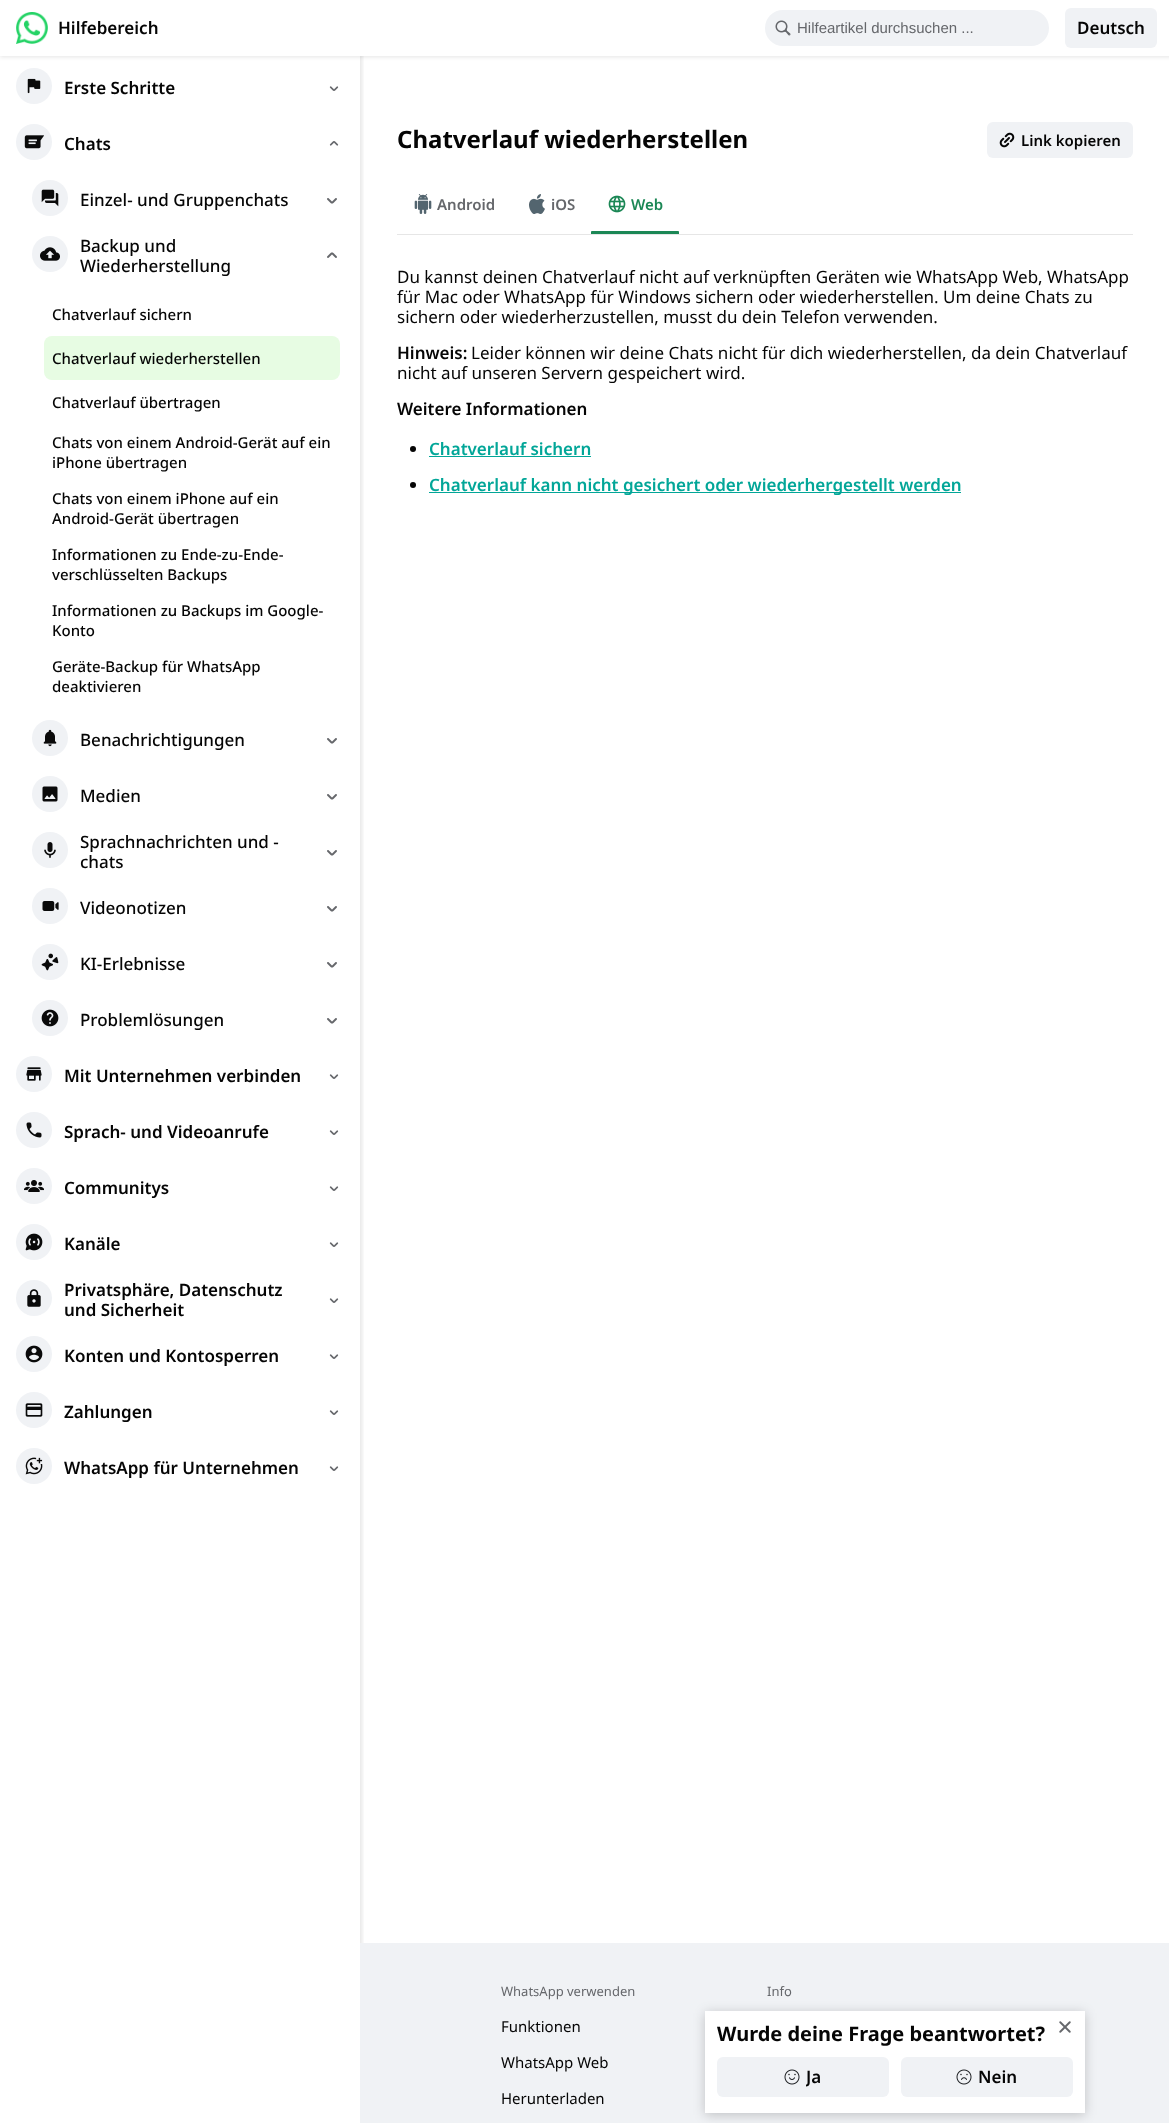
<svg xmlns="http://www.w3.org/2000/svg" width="1169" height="2123">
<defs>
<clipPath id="clip1"><rect x="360" y="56" width="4" height="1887"/></clipPath>
<clipPath id="clip2"><rect x="806" y="2067" width="16" height="20"/></clipPath>
</defs>
<rect width="100%" height="100%" fill="#fff"/>
<rect y="1" width="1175" height="56" fill="#0000001a" filter="blur(2px)"/>
<g clip-path="url(#clip1)">
<rect x="6" y="2" width="356" height="2119" fill="#0000001a" filter="blur(2px)"/>
</g>
<rect width="1169" height="56" fill="#fff"/>
<image x="16" y="12" width="32" height="32" href="media/1.png"/>
<text x="58" y="34" style="font-family:Noto Sans;font-size:17px;font-weight:600;fill:#050505">Hilfebereich</text>
<rect x="765" y="10" width="284" height="36" rx="18" fill="#f0f2f5"/>
<image x="775" y="20" width="16" height="16" href="media/2.png"/>
<text x="797" y="33" style="font-family:Liberation Sans;font-size:15px;fill:#65676b">Hilfeartikel durchsuchen ...</text>
<rect x="1065" y="8" width="92" height="40" rx="6" fill="#f0f2f5"/>
<text x="1077" y="34" style="font-family:Noto Sans;font-size:17px;font-weight:600;fill:#050505">Deutsch</text>
<circle cx="34" cy="86" r="18" fill="#f0f2f5"/>
<image x="27" y="78" width="14" height="16" href="media/3.png"/>
<text x="64" y="94" style="font-family:Noto Sans;font-size:17px;font-weight:600;fill:#050505">Erste Schritte</text>
<image x="329" y="86" width="10" height="5" href="media/4.png"/>
<circle cx="34" cy="142" r="18" fill="#f0f2f5"/>
<image x="24" y="135" width="20" height="14" href="media/5.png"/>
<text x="64" y="150" style="font-family:Noto Sans;font-size:17px;font-weight:600;fill:#050505">Chats</text>
<image x="329" y="141" width="10" height="5" href="media/6.png"/>
<circle cx="50" cy="198" r="18" fill="#f0f2f5"/>
<image x="41" y="189" width="18" height="18" href="media/7.png"/>
<text x="80" y="206" style="font-family:Noto Sans;font-size:17px;font-weight:500;fill:#050505">Einzel- und Gruppenchats</text>
<image x="327" y="198" width="10" height="6" href="media/8.png"/>
<circle cx="50" cy="254" r="18" fill="#f0f2f5"/>
<image x="40" y="247" width="20" height="14" href="media/9.png"/>
<text x="80" y="252" style="font-family:Noto Sans;font-size:17px;font-weight:500;fill:#050505">Backup und</text>
<text x="80" y="272" style="font-family:Noto Sans;font-size:17px;font-weight:500;fill:#050505">Wiederherstellung</text>
<image x="327" y="252" width="10" height="6" href="media/10.png"/>
<text x="52" y="320" style="font-family:Noto Sans;font-size:15px;font-weight:500;fill:#050505">Chatverlauf sichern</text>
<rect x="44" y="336" width="296" height="44" rx="8" fill="#e7fce3"/>
<text x="52" y="364" style="font-family:Noto Sans;font-size:15px;font-weight:500;fill:#050505">Chatverlauf wiederherstellen</text>
<text x="52" y="408" style="font-family:Noto Sans;font-size:15px;font-weight:500;fill:#050505">Chatverlauf übertragen</text>
<text x="52" y="448" style="font-family:Noto Sans;font-size:15px;font-weight:500;fill:#050505">Chats von einem Android-Gerät auf ein</text>
<text x="52" y="468" style="font-family:Noto Sans;font-size:15px;font-weight:500;fill:#050505">iPhone übertragen</text>
<text x="52" y="504" style="font-family:Noto Sans;font-size:15px;font-weight:500;fill:#050505">Chats von einem iPhone auf ein</text>
<text x="52" y="524" style="font-family:Noto Sans;font-size:15px;font-weight:500;fill:#050505">Android-Gerät übertragen</text>
<text x="52" y="560" style="font-family:Noto Sans;font-size:15px;font-weight:500;fill:#050505">Informationen zu Ende-zu-Ende-</text>
<text x="52" y="580" style="font-family:Noto Sans;font-size:15px;font-weight:500;fill:#050505">verschlüsselten Backups</text>
<text x="52" y="616" style="font-family:Noto Sans;font-size:15px;font-weight:500;fill:#050505">Informationen zu Backups im Google-</text>
<text x="52" y="636" style="font-family:Noto Sans;font-size:15px;font-weight:500;fill:#050505">Konto</text>
<text x="52" y="672" style="font-family:Noto Sans;font-size:15px;font-weight:500;fill:#050505">Geräte-Backup für WhatsApp</text>
<text x="52" y="692" style="font-family:Noto Sans;font-size:15px;font-weight:500;fill:#050505">deaktivieren</text>
<circle cx="50" cy="738" r="18" fill="#f0f2f5"/>
<image x="43" y="729" width="14" height="18" href="media/11.png"/>
<text x="80" y="746" style="font-family:Noto Sans;font-size:17px;font-weight:500;fill:#050505">Benachrichtigungen</text>
<image x="327" y="738" width="10" height="6" href="media/8.png"/>
<circle cx="50" cy="794" r="18" fill="#f0f2f5"/>
<image x="42" y="786" width="16" height="16" href="media/12.png"/>
<text x="80" y="802" style="font-family:Noto Sans;font-size:17px;font-weight:500;fill:#050505">Medien</text>
<image x="327" y="794" width="10" height="6" href="media/8.png"/>
<circle cx="50" cy="850" r="18" fill="#f0f2f5"/>
<image x="44" y="842" width="12" height="16" href="media/13.png"/>
<text x="80" y="848" style="font-family:Noto Sans;font-size:17px;font-weight:500;fill:#050505">Sprachnachrichten und -</text>
<text x="80" y="868" style="font-family:Noto Sans;font-size:17px;font-weight:500;fill:#050505">chats</text>
<image x="327" y="850" width="10" height="6" href="media/8.png"/>
<circle cx="50" cy="906" r="18" fill="#f0f2f5"/>
<image x="42" y="901" width="17" height="10" href="media/14.png"/>
<text x="80" y="914" style="font-family:Noto Sans;font-size:17px;font-weight:500;fill:#050505">Videonotizen</text>
<image x="327" y="906" width="10" height="6" href="media/8.png"/>
<circle cx="50" cy="962" r="18" fill="#f0f2f5"/>
<image x="41" y="953" width="18" height="18" href="media/15.png"/>
<text x="80" y="970" style="font-family:Noto Sans;font-size:17px;font-weight:500;fill:#050505">KI-Erlebnisse</text>
<image x="327" y="962" width="10" height="6" href="media/8.png"/>
<circle cx="50" cy="1018" r="18" fill="#f0f2f5"/>
<image x="41" y="1009" width="18" height="18" href="media/16.png"/>
<text x="80" y="1026" style="font-family:Noto Sans;font-size:17px;font-weight:500;fill:#050505">Problemlösungen</text>
<image x="327" y="1018" width="10" height="6" href="media/8.png"/>
<circle cx="34" cy="1074" r="18" fill="#f0f2f5"/>
<image x="26" y="1067" width="16" height="14" href="media/17.png"/>
<text x="64" y="1082" style="font-family:Noto Sans;font-size:17px;font-weight:600;fill:#050505">Mit Unternehmen verbinden</text>
<image x="329" y="1074" width="10" height="5" href="media/4.png"/>
<circle cx="34" cy="1130" r="18" fill="#f0f2f5"/>
<image x="26" y="1122" width="16" height="16" href="media/18.png"/>
<text x="64" y="1138" style="font-family:Noto Sans;font-size:17px;font-weight:600;fill:#050505">Sprach- und Videoanrufe</text>
<image x="329" y="1130" width="10" height="5" href="media/4.png"/>
<circle cx="34" cy="1186" r="18" fill="#f0f2f5"/>
<image x="24" y="1180" width="20" height="12" href="media/19.png"/>
<text x="64" y="1194" style="font-family:Noto Sans;font-size:17px;font-weight:600;fill:#050505">Communitys</text>
<image x="329" y="1186" width="10" height="5" href="media/4.png"/>
<circle cx="34" cy="1242" r="18" fill="#f0f2f5"/>
<image x="25" y="1233" width="18" height="18" href="media/20.png"/>
<text x="64" y="1250" style="font-family:Noto Sans;font-size:17px;font-weight:600;fill:#050505">Kanäle</text>
<image x="329" y="1242" width="10" height="5" href="media/4.png"/>
<circle cx="34" cy="1298" r="18" fill="#f0f2f5"/>
<image x="27" y="1289" width="14" height="18" href="media/21.png"/>
<text x="64" y="1296" style="font-family:Noto Sans;font-size:17px;font-weight:600;fill:#050505">Privatsphäre, Datenschutz</text>
<text x="64" y="1316" style="font-family:Noto Sans;font-size:17px;font-weight:600;fill:#050505">und Sicherheit</text>
<image x="329" y="1298" width="10" height="5" href="media/4.png"/>
<circle cx="34" cy="1354" r="18" fill="#f0f2f5"/>
<image x="25" y="1345" width="18" height="18" href="media/22.png"/>
<text x="64" y="1362" style="font-family:Noto Sans;font-size:17px;font-weight:600;fill:#050505">Konten und Kontosperren</text>
<image x="329" y="1354" width="10" height="5" href="media/4.png"/>
<circle cx="34" cy="1410" r="18" fill="#f0f2f5"/>
<image x="25" y="1403" width="18" height="14" href="media/23.png"/>
<text x="64" y="1418" style="font-family:Noto Sans;font-size:17px;font-weight:600;fill:#050505">Zahlungen</text>
<image x="329" y="1410" width="10" height="5" href="media/4.png"/>
<circle cx="34" cy="1466" r="18" fill="#f0f2f5"/>
<image x="25" y="1457" width="18" height="18" href="media/24.png"/>
<text x="64" y="1474" style="font-family:Noto Sans;font-size:17px;font-weight:600;fill:#050505">WhatsApp für Unternehmen</text>
<image x="329" y="1466" width="10" height="5" href="media/4.png"/>
<rect x="397" y="234" width="736" height="1" fill="#e6e6e6"/>
<text x="397" y="148" style="font-family:Noto Sans;font-size:24px;font-weight:bold;fill:#050505">Chatverlauf wiederherstellen</text>
<rect x="987" y="122" width="146" height="36" rx="6" fill="#f0f2f5"/>
<image x="999" y="132" width="16" height="16" href="media/25.png"/>
<text x="1021" y="146" style="font-family:Noto Sans;font-size:15px;font-weight:600;fill:#050505">Link kopieren</text>
<image x="414" y="194" width="18" height="20" href="media/26.png"/>
<text x="437" y="210" style="font-family:Noto Sans;font-size:15px;font-weight:600;fill:#65676b">Android</text>
<image x="529" y="194" width="16" height="20" href="media/27.png"/>
<text x="551" y="210" style="font-family:Noto Sans;font-size:15px;font-weight:600;fill:#65676b">iOS</text>
<image x="608" y="195" width="18" height="18" href="media/28.png"/>
<text x="631" y="210" style="font-family:Noto Sans;font-size:15px;font-weight:600;fill:#1b8755">Web</text>
<path d="M592 231h86c.5 0 1 .5 1 1v2h-88v-2c0-.5 .5-1 1-1z" fill="#1b8755"/>
<text x="397" y="283" style="font-family:Noto Sans;font-size:17px;fill:#050505">Du kannst deinen Chatverlauf nicht auf verknüpften Geräten wie WhatsApp Web, WhatsApp</text>
<text x="397" y="303" style="font-family:Noto Sans;font-size:17px;fill:#050505">für Mac oder WhatsApp für Windows sichern oder wiederherstellen. Um deine Chats zu</text>
<text x="397" y="323" style="font-family:Noto Sans;font-size:17px;fill:#050505">sichern oder wiederherzustellen, musst du dein Telefon verwenden.</text>
<text x="397" y="359" style="font-family:Noto Sans;font-size:17px;font-weight:600;fill:#050505">Hinweis:</text>
<text x="471" y="359" style="font-family:Noto Sans;font-size:17px;fill:#050505">Leider können wir deine Chats nicht für dich wiederherstellen, da dein Chatverlauf</text>
<text x="397" y="379" style="font-family:Noto Sans;font-size:17px;fill:#050505">nicht auf unseren Servern gespeichert wird.</text>
<text x="397" y="415" style="font-family:Noto Sans;font-size:17px;font-weight:600;fill:#050505">Weitere Informationen</text>
<circle cx="413" cy="449" r="3" fill="#050505"/>
<text x="429" y="455" style="font-family:Noto Sans;font-size:17px;font-weight:600;fill:#02a698">Chatverlauf sichern</text>
<rect x="429" y="456" width="162" height="1" fill="#02a698"/>
<circle cx="413" cy="485" r="3" fill="#050505"/>
<rect x="429" y="492" width="532" height="1" fill="#02a698"/>
<text x="429" y="491" style="font-family:Noto Sans;font-size:17px;font-weight:600;fill:#02a698">Chatverlauf kann nicht gesichert oder wiederhergestellt werden</text>
<rect x="360" y="1943" width="809" height="180" fill="#f0f2f5"/>
<text x="501" y="1996" style="font-family:Noto Sans;font-size:13px;fill:#65676b">WhatsApp verwenden</text>
<text x="501" y="2032" style="font-family:Noto Sans;font-size:15px;fill:#050505">Funktionen</text>
<text x="501" y="2068" style="font-family:Noto Sans;font-size:15px;fill:#050505">WhatsApp Web</text>
<text x="501" y="2104" style="font-family:Noto Sans;font-size:15px;fill:#050505">Herunterladen</text>
<text x="767" y="1996" style="font-family:Noto Sans;font-size:13px;fill:#65676b">Info</text>
<rect x="705" y="2013" width="380" height="102" fill="#00000033" filter="blur(6px)"/>
<rect x="705" y="2011" width="380" height="102" fill="#fff"/>
<text x="717" y="2041" style="font-family:Noto Sans;font-size:20px;font-weight:bold;fill:#050505">Wurde deine Frage beantwortet?</text>
<image x="1059" y="2021" width="12" height="12" href="media/29.png"/>
<rect x="717" y="2057" width="172" height="40" rx="6" fill="#f0f2f5"/>
<image x="784" y="2069" width="16" height="16" href="media/30.png"/>
<g clip-path="url(#clip2)">
<text x="806" y="2083" style="font-family:Noto Sans;font-size:17px;font-weight:600;fill:#050505">Ja</text>
</g>
<rect x="901" y="2057" width="172" height="40" rx="6" fill="#f0f2f5"/>
<image x="956" y="2069" width="16" height="16" href="media/31.png"/>
<text x="978" y="2083" style="font-family:Noto Sans;font-size:17px;font-weight:600;fill:#050505">Nein</text>
</svg>
